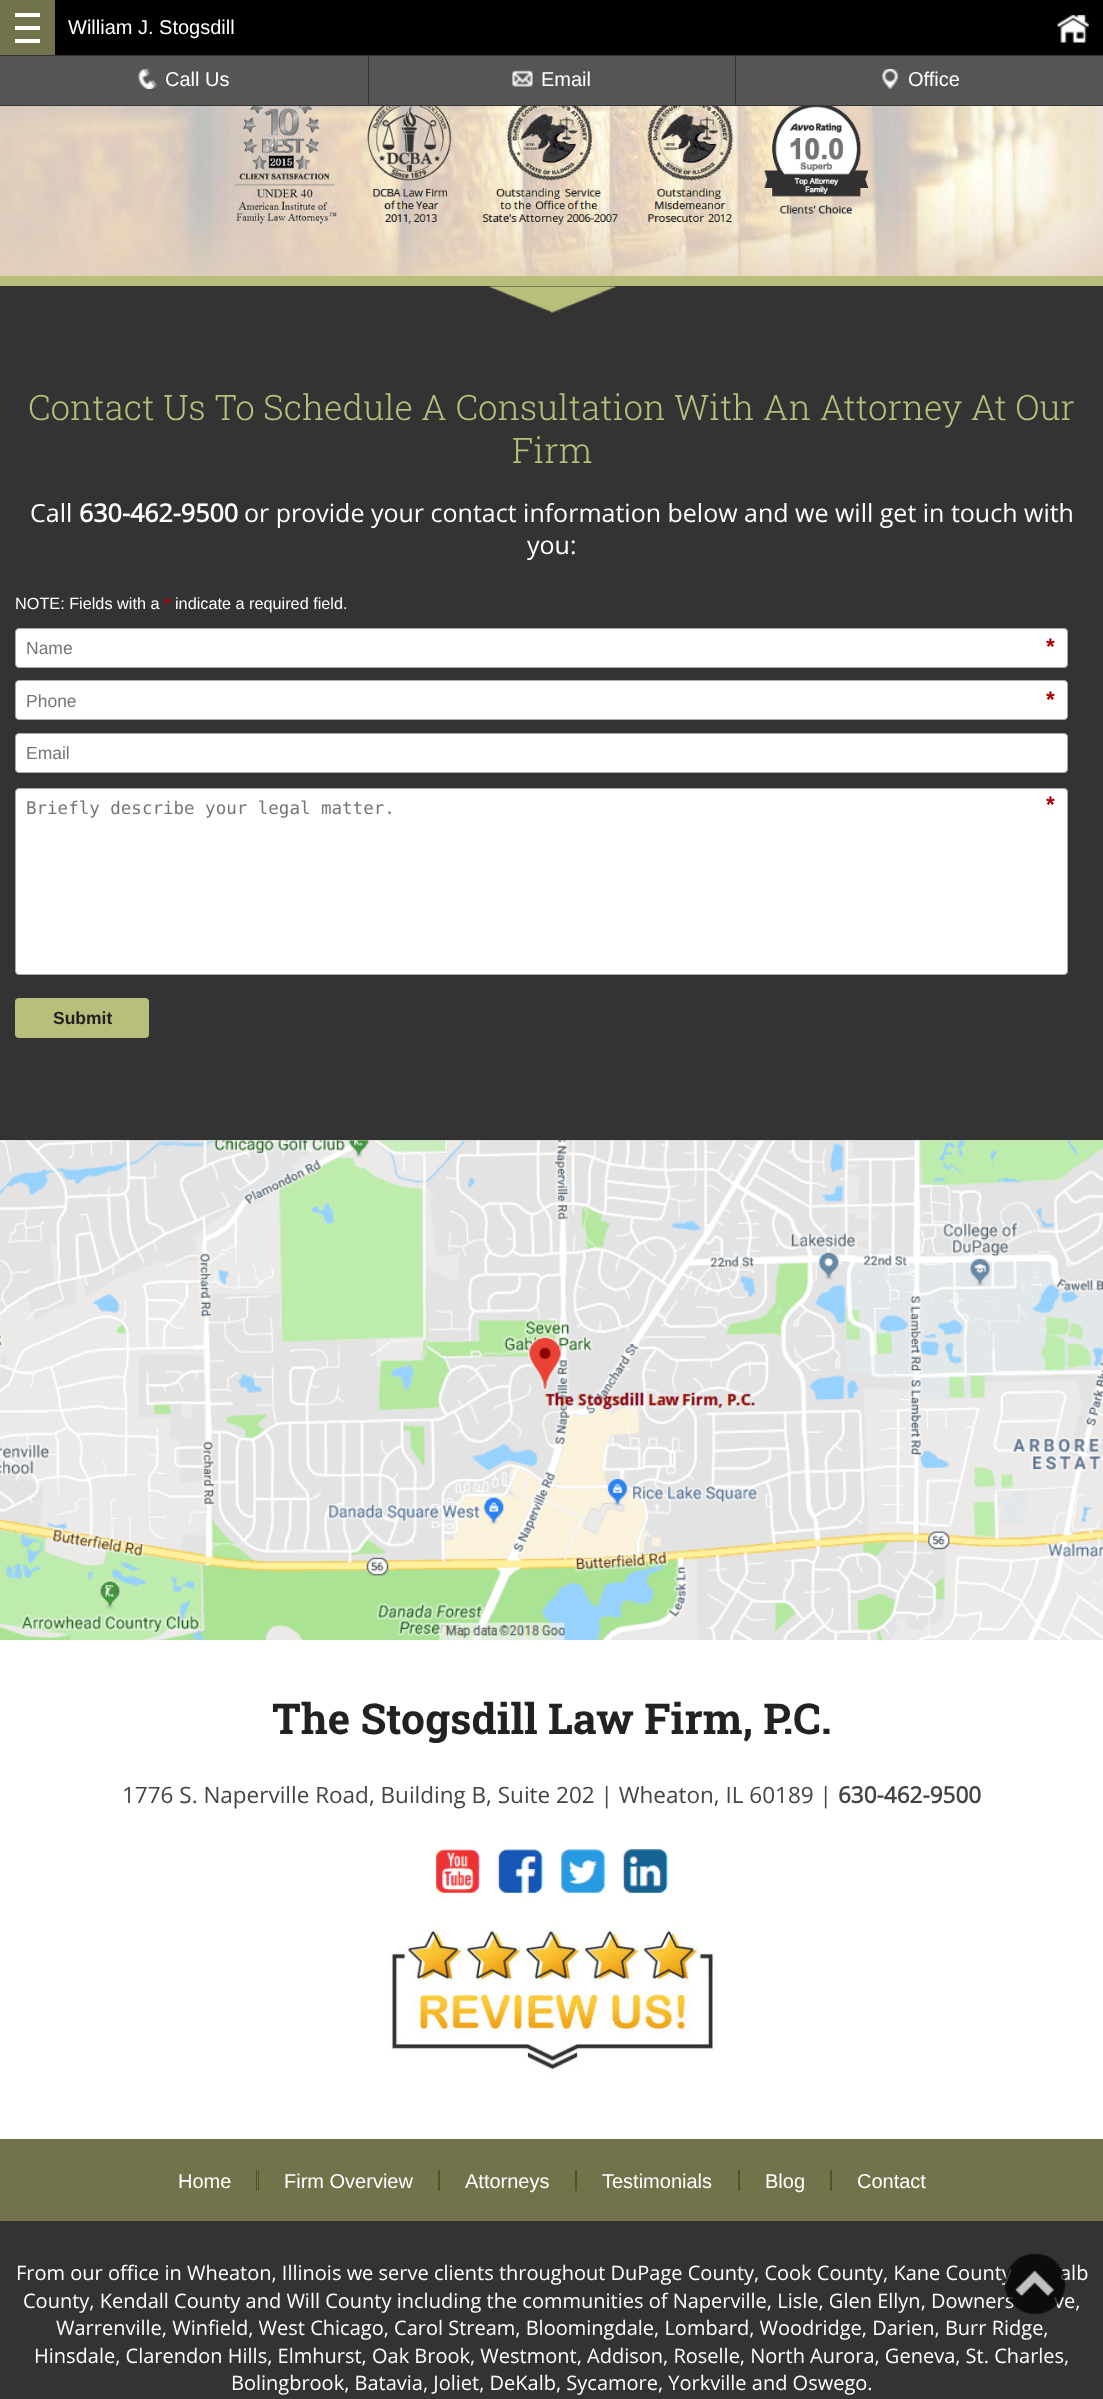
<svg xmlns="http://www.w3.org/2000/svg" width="1103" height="2399">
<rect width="100%" height="100%" fill="#fff"/>
<rect x="55" width="1048" height="55" fill="#000"/>
<rect x="735" y="55" width="1" height="50" fill="#333"/>
<rect x="368" y="55" width="1" height="50" fill="#333"/>
<rect y="55" width="1103" height="1" fill="#333"/>
<rect width="55" height="55" fill="#72734b"/>
<rect x="15" y="13" width="25" height="4" fill="#fff"/>
<rect x="15" y="26" width="25" height="4" fill="#fff"/>
<rect x="15" y="39" width="25" height="4" fill="#fff"/>
<text x="68" y="34" style="font-family:Liberation Sans;font-size:20px;fill:#fff">William J. Stogsdill</text>
<image x="1057" y="15" width="32" height="28" href="media/1.png"/>
<rect y="105" width="1103" height="1" fill="#333"/>
<rect y="56" width="368" height="49" fill="#555"/>
<image x="138" y="69" width="19" height="20" href="media/2.png"/>
<text x="165" y="86" style="font-family:Liberation Sans;font-size:20px;fill:#fff">Call Us</text>
<rect x="369" y="56" width="366" height="49" fill="#555"/>
<image x="512" y="70" width="21" height="17" href="media/3.png"/>
<text x="541" y="86" style="font-family:Liberation Sans;font-size:20px;fill:#fff">Email</text>
<rect x="736" y="56" width="367" height="49" fill="#555"/>
<image x="882" y="69" width="17" height="20" href="media/4.png"/>
<text x="908" y="86" style="font-family:Liberation Sans;font-size:20px;fill:#fff">Office</text>
<image x="0" y="106" width="1103" height="170" href="media/5.png"/>
<image x="235" y="106" width="102" height="118" href="media/6.png"/>
<image x="367" y="106" width="85" height="118" href="media/7.png"/>
<image x="482" y="106" width="136" height="119" href="media/8.png"/>
<image x="647" y="106" width="86" height="116" href="media/9.png"/>
<image x="764" y="106" width="105" height="108" href="media/10.png"/>
<rect y="286" width="1103" height="854" fill="#333"/>
<image x="488" y="286" width="129" height="27" href="media/11.png"/>
<rect y="276" width="1103" height="10" fill="#b9be7a"/>
<text x="28" y="420" style="font-family:Roboto Slab;font-size:35px;font-weight:300;fill:#b9be7a">Contact Us To Schedule A Consultation With An Attorney At Our</text>
<text x="512" y="463" style="font-family:Roboto Slab;font-size:35px;font-weight:300;fill:#b9be7a">Firm</text>
<text x="30" y="522" style="font-family:Open Sans;font-size:25px;fill:#fff">Call</text>
<text x="79" y="522" style="font-family:Open Sans;font-size:25px;font-weight:bold;fill:#fff">630-462-9500</text>
<text x="244" y="522" style="font-family:Open Sans;font-size:25px;fill:#fff">or provide your contact information below and we will get in touch with</text>
<text x="527" y="554" style="font-family:Open Sans;font-size:25px;fill:#fff">you:</text>
<text x="15" y="609" style="font-family:Liberation Sans;font-size:16.25px;fill:#fff">NOTE: Fields with a</text>
<text x="164" y="609" style="font-family:Liberation Sans;font-size:16.25px;font-weight:bold;fill:#a00">*</text>
<text x="175" y="609" style="font-family:Liberation Sans;font-size:16.25px;fill:#fff">indicate a required field.</text>
<rect x="15.5" y="628.5" width="1052" height="39" rx="3.5" fill="#fff" stroke="#aaa"/>
<text x="26" y="654" style="font-family:Liberation Sans;font-size:17.5px;fill:#757575">Name</text>
<text x="1046" y="654" style="font-family:Liberation Sans;font-size:22.5px;font-weight:bold;fill:#a00">*</text>
<rect x="15.5" y="680.5" width="1052" height="39" rx="3.5" fill="#fff" stroke="#aaa"/>
<text x="26" y="707" style="font-family:Liberation Sans;font-size:17.5px;fill:#757575">Phone</text>
<text x="1046" y="707" style="font-family:Liberation Sans;font-size:22.5px;font-weight:bold;fill:#a00">*</text>
<rect x="15.5" y="733.5" width="1052" height="39" rx="3.5" fill="#fff" stroke="#aaa"/>
<text x="26" y="759" style="font-family:Liberation Sans;font-size:17.5px;fill:#757575">Email</text>
<rect x="15.5" y="788.5" width="1052" height="186" rx="3.5" fill="#fff" stroke="#aaa"/>
<text x="26" y="814" style="font-family:DejaVu Sans Mono;font-size:17.5px;fill:#757575">Briefly describe your legal matter.</text>
<text x="1046" y="812" style="font-family:Liberation Sans;font-size:22.5px;font-weight:bold;fill:#a00">*</text>
<rect x="15" y="998" width="134" height="40" rx="4" fill="#b9be7a"/>
<text x="53" y="1024" style="font-family:Liberation Sans;font-size:17.5px;font-weight:bold;fill:#222">Submit</text>
<rect y="1140" width="1103" height="1" fill="#ccc"/>
<image x="0" y="1140" width="1103" height="501" href="media/12.png"/>
<text x="272" y="1734" style="font-family:Roboto Slab;font-size:42.5px;font-weight:bold;fill:#222">The Stogsdill Law Firm, P.C.</text>
<text x="122" y="1803" style="font-family:Open Sans;font-size:22.5px;fill:#444">1776 S. Naperville Road, Building B, Suite 202 | Wheaton, IL 60189 |</text>
<text x="838" y="1803" style="font-family:Open Sans;font-size:22.5px;font-weight:bold;fill:#444">630-462-9500</text>
<image x="436" y="1849" width="44" height="44" href="media/13.png"/>
<image x="498" y="1849" width="45" height="44" href="media/14.png"/>
<image x="561" y="1849" width="44" height="44" href="media/15.png"/>
<image x="623" y="1849" width="45" height="44" href="media/16.png"/>
<image x="390" y="1928" width="325" height="145" href="media/17.png"/>
<rect y="2139" width="1103" height="82" fill="#72734b"/>
<text x="178" y="2188" style="font-family:Liberation Sans;font-size:20px;fill:#fff">Home</text>
<rect x="256" y="2170" width="1" height="21" fill="#552"/>
<text x="284" y="2188" style="font-family:Liberation Sans;font-size:20px;fill:#fff">Firm Overview</text>
<rect x="438" y="2170" width="2" height="21" fill="#552"/>
<rect x="258" y="2170" width="1" height="21" fill="#552"/>
<text x="465" y="2188" style="font-family:Liberation Sans;font-size:20px;fill:#fff">Attorneys</text>
<rect x="575" y="2170" width="2" height="21" fill="#552"/>
<text x="602" y="2188" style="font-family:Liberation Sans;font-size:20px;fill:#fff">Testimonials</text>
<rect x="738" y="2170" width="2" height="21" fill="#552"/>
<text x="765" y="2188" style="font-family:Liberation Sans;font-size:20px;fill:#fff">Blog</text>
<rect x="830" y="2170" width="2" height="21" fill="#552"/>
<text x="857" y="2188" style="font-family:Liberation Sans;font-size:20px;fill:#fff">Contact</text>
<rect y="2221" width="1103" height="178" fill="#333"/>
<text x="16" y="2280" style="font-family:Open Sans;font-size:20px;fill:#fff">From our office in Wheaton, Illinois we serve clients throughout DuPage County, Cook County, Kane County</text>
<text x="1060" y="2280" style="font-family:Open Sans;font-size:20px;fill:#fff">alb</text>
<text x="23" y="2308" style="font-family:Open Sans;font-size:20px;fill:#fff">County, Kendall County and Will County including the communities of Naperville, Lisle, Glen Ellyn, Downers</text>
<text x="1054" y="2308" style="font-family:Open Sans;font-size:20px;fill:#fff">ve,</text>
<text x="56" y="2335" style="font-family:Open Sans;font-size:20px;fill:#fff">Warrenville, Winfield, West Chicago, Carol Stream, Bloomingdale, Lombard, Woodridge, Darien, Burr Ridge,</text>
<text x="34" y="2363" style="font-family:Open Sans;font-size:20px;fill:#fff">Hinsdale, Clarendon Hills, Elmhurst, Oak Brook, Westmont, Addison, Roselle, North Aurora, Geneva, St. Charles,</text>
<text x="231" y="2390" style="font-family:Open Sans;font-size:20px;fill:#fff">Bolingbrook, Batavia, Joliet, DeKalb, Sycamore, Yorkville and Oswego.</text>
<image x="1004" y="2253" width="62" height="61" href="media/18.png"/>
</svg>
